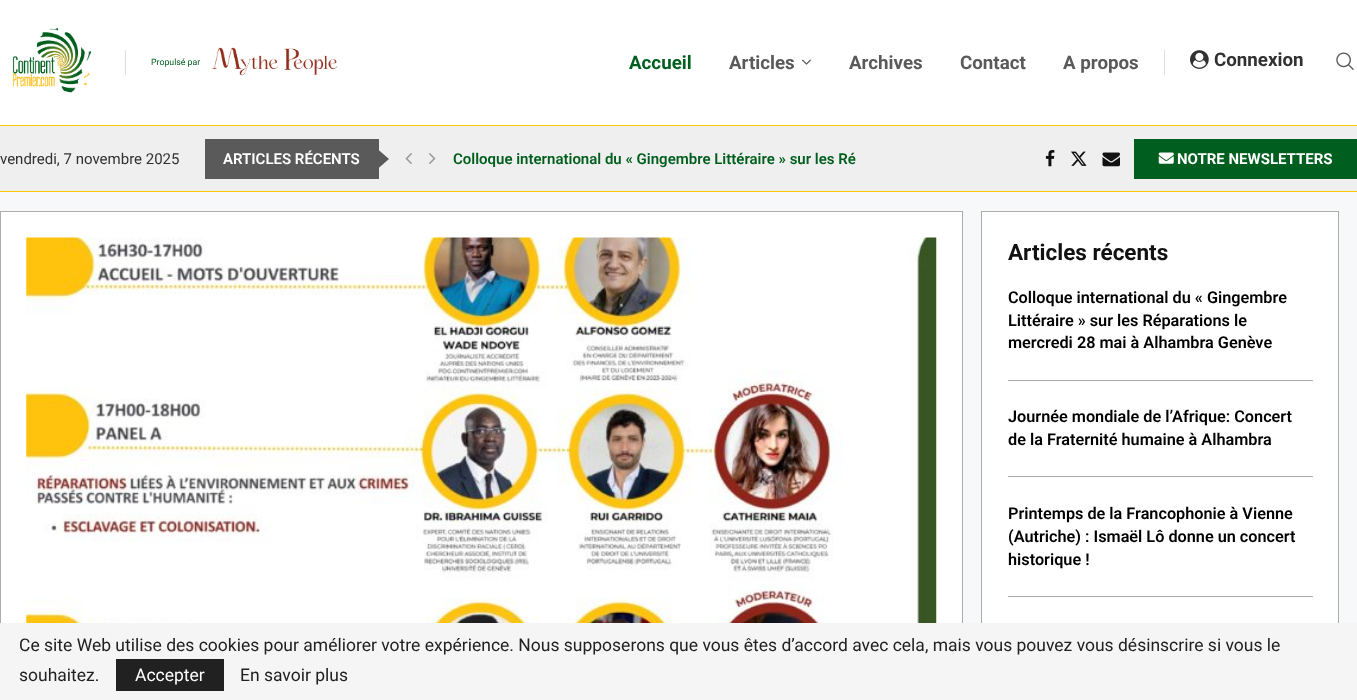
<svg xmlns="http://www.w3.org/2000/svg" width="1357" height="700">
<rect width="100%" height="100%" fill="#f6f8fa"/>
<rect width="1357" height="125" fill="#fff"/>
<rect y="125" width="1357" height="1" fill="#ffc600"/>
<image x="12" y="28" width="80" height="65" href="media/1.png"/>
<rect x="125" y="50" width="1" height="25" fill="#dedede"/>
<text x="151" y="65" style="font-family:Roboto;font-size:8.75px;fill:#005f1e">Propulsé par</text>
<image x="212" y="47" width="126" height="29" href="media/2.png"/>
<text x="629" y="69" style="font-family:Roboto;font-size:18.75px;font-weight:bold;fill:#005f1e">Accueil</text>
<text x="729" y="69" style="font-family:Roboto;font-size:18.75px;font-weight:bold;fill:#5a5a5a">Articles</text>
<image x="802" y="59" width="9" height="6" href="media/3.png"/>
<text x="849" y="69" style="font-family:Roboto;font-size:18.75px;font-weight:bold;fill:#5a5a5a">Archives</text>
<text x="960" y="69" style="font-family:Roboto;font-size:18.75px;font-weight:bold;fill:#5a5a5a">Contact</text>
<text x="1063" y="69" style="font-family:Roboto;font-size:18.75px;font-weight:bold;fill:#5a5a5a">A propos</text>
<rect x="1164" y="50" width="1" height="25" fill="#dedede"/>
<image x="1190" y="50" width="19" height="19" href="media/4.png"/>
<text x="1214" y="66" style="font-family:Roboto;font-size:18.75px;font-weight:bold;fill:#313131">Connexion</text>
<image x="1336" y="52" width="18" height="18" href="media/5.png"/>
<rect y="126" width="1357" height="65" fill="#efefef"/>
<rect y="191" width="1357" height="1" fill="#ffc600"/>
<text x="0" y="164" style="font-family:Roboto;font-size:15px;fill:#313131">vendredi, 7 novembre 2025</text>
<rect x="205" y="139" width="174" height="40" fill="#5a5a5a"/>
<text x="223" y="164" style="font-family:Roboto;font-size:15px;font-weight:600;fill:#fff">ARTICLES RÉCENTS</text>
<path d="M377.5 169v-20l11.5 10z" fill="#5a5a5a"/>
<image x="405" y="153" width="7" height="11" href="media/6.png"/>
<image x="429" y="153" width="7" height="11" href="media/7.png"/>
<text x="453" y="164" style="font-family:Roboto;font-size:15px;font-weight:600;fill:#005f1e">Colloque international du « Gingembre Littéraire » sur les Ré</text>
<image x="1045" y="150" width="10" height="17" href="media/8.png"/>
<image x="1071" y="151" width="16" height="15" href="media/9.png"/>
<image x="1102" y="152" width="18" height="15" href="media/10.png"/>
<rect x="1134" y="139" width="223" height="40" fill="#005f1e"/>
<image x="1158" y="152" width="16" height="12" href="media/11.png"/>
<text x="1177" y="164" style="font-family:Roboto;font-size:15px;font-weight:bold;fill:#fff">NOTRE NEWSLETTERS</text>
<rect x="1" y="212" width="961" height="411" fill="#fff"/>
<rect x="0.5" y="211.5" width="962" height="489" fill="none" stroke="#adadad"/>
<image x="26" y="237" width="911" height="386" href="media/12.png"/>
<rect x="982" y="212" width="356" height="411" fill="#fff"/>
<rect x="981.5" y="211.5" width="357" height="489" fill="none" stroke="#adadad"/>
<text x="1008" y="260" style="font-family:Roboto;font-size:22.5px;font-weight:bold;fill:#111">Articles récents</text>
<rect x="1008" y="380" width="305" height="1" fill="#adadad"/>
<text x="1008" y="303" style="font-family:Roboto;font-size:16.25px;font-weight:600;fill:#000">Colloque international du « Gingembre</text>
<text x="1008" y="326" style="font-family:Roboto;font-size:16.25px;font-weight:600;fill:#000">Littéraire » sur les Réparations le</text>
<text x="1008" y="348" style="font-family:Roboto;font-size:16.25px;font-weight:600;fill:#000">mercredi 28 mai à Alhambra Genève</text>
<rect x="1008" y="476" width="305" height="1" fill="#adadad"/>
<text x="1008" y="422" style="font-family:Roboto;font-size:16.25px;font-weight:600;fill:#000">Journée mondiale de l’Afrique: Concert</text>
<text x="1008" y="445" style="font-family:Roboto;font-size:16.25px;font-weight:600;fill:#000">de la Fraternité humaine à Alhambra</text>
<rect x="1008" y="596" width="305" height="1" fill="#adadad"/>
<text x="1008" y="519" style="font-family:Roboto;font-size:16.25px;font-weight:600;fill:#000">Printemps de la Francophonie à Vienne</text>
<text x="1008" y="542" style="font-family:Roboto;font-size:16.25px;font-weight:600;fill:#000">(Autriche) : Ismaël Lô donne un concert</text>
<text x="1008" y="565" style="font-family:Roboto;font-size:16.25px;font-weight:600;fill:#000">historique !</text>
<rect y="623" width="1357" height="77" fill="#f5f5f5"/>
<text x="19" y="651" style="font-family:Roboto;font-size:17.5px;fill:#212121">Ce site Web utilise des cookies pour améliorer votre expérience. Nous supposerons que vous êtes d’accord avec cela, mais vous pouvez vous désinscrire si vous le</text>
<text x="19" y="681" style="font-family:Roboto;font-size:17.5px;fill:#212121">souhaitez.</text>
<rect x="116" y="659" width="108" height="32" fill="#212121"/>
<text x="135" y="681" style="font-family:Roboto;font-size:17.5px;fill:#fff">Accepter</text>
<text x="240" y="681" style="font-family:Roboto;font-size:17.5px;fill:#212121">En savoir plus</text>
</svg>
